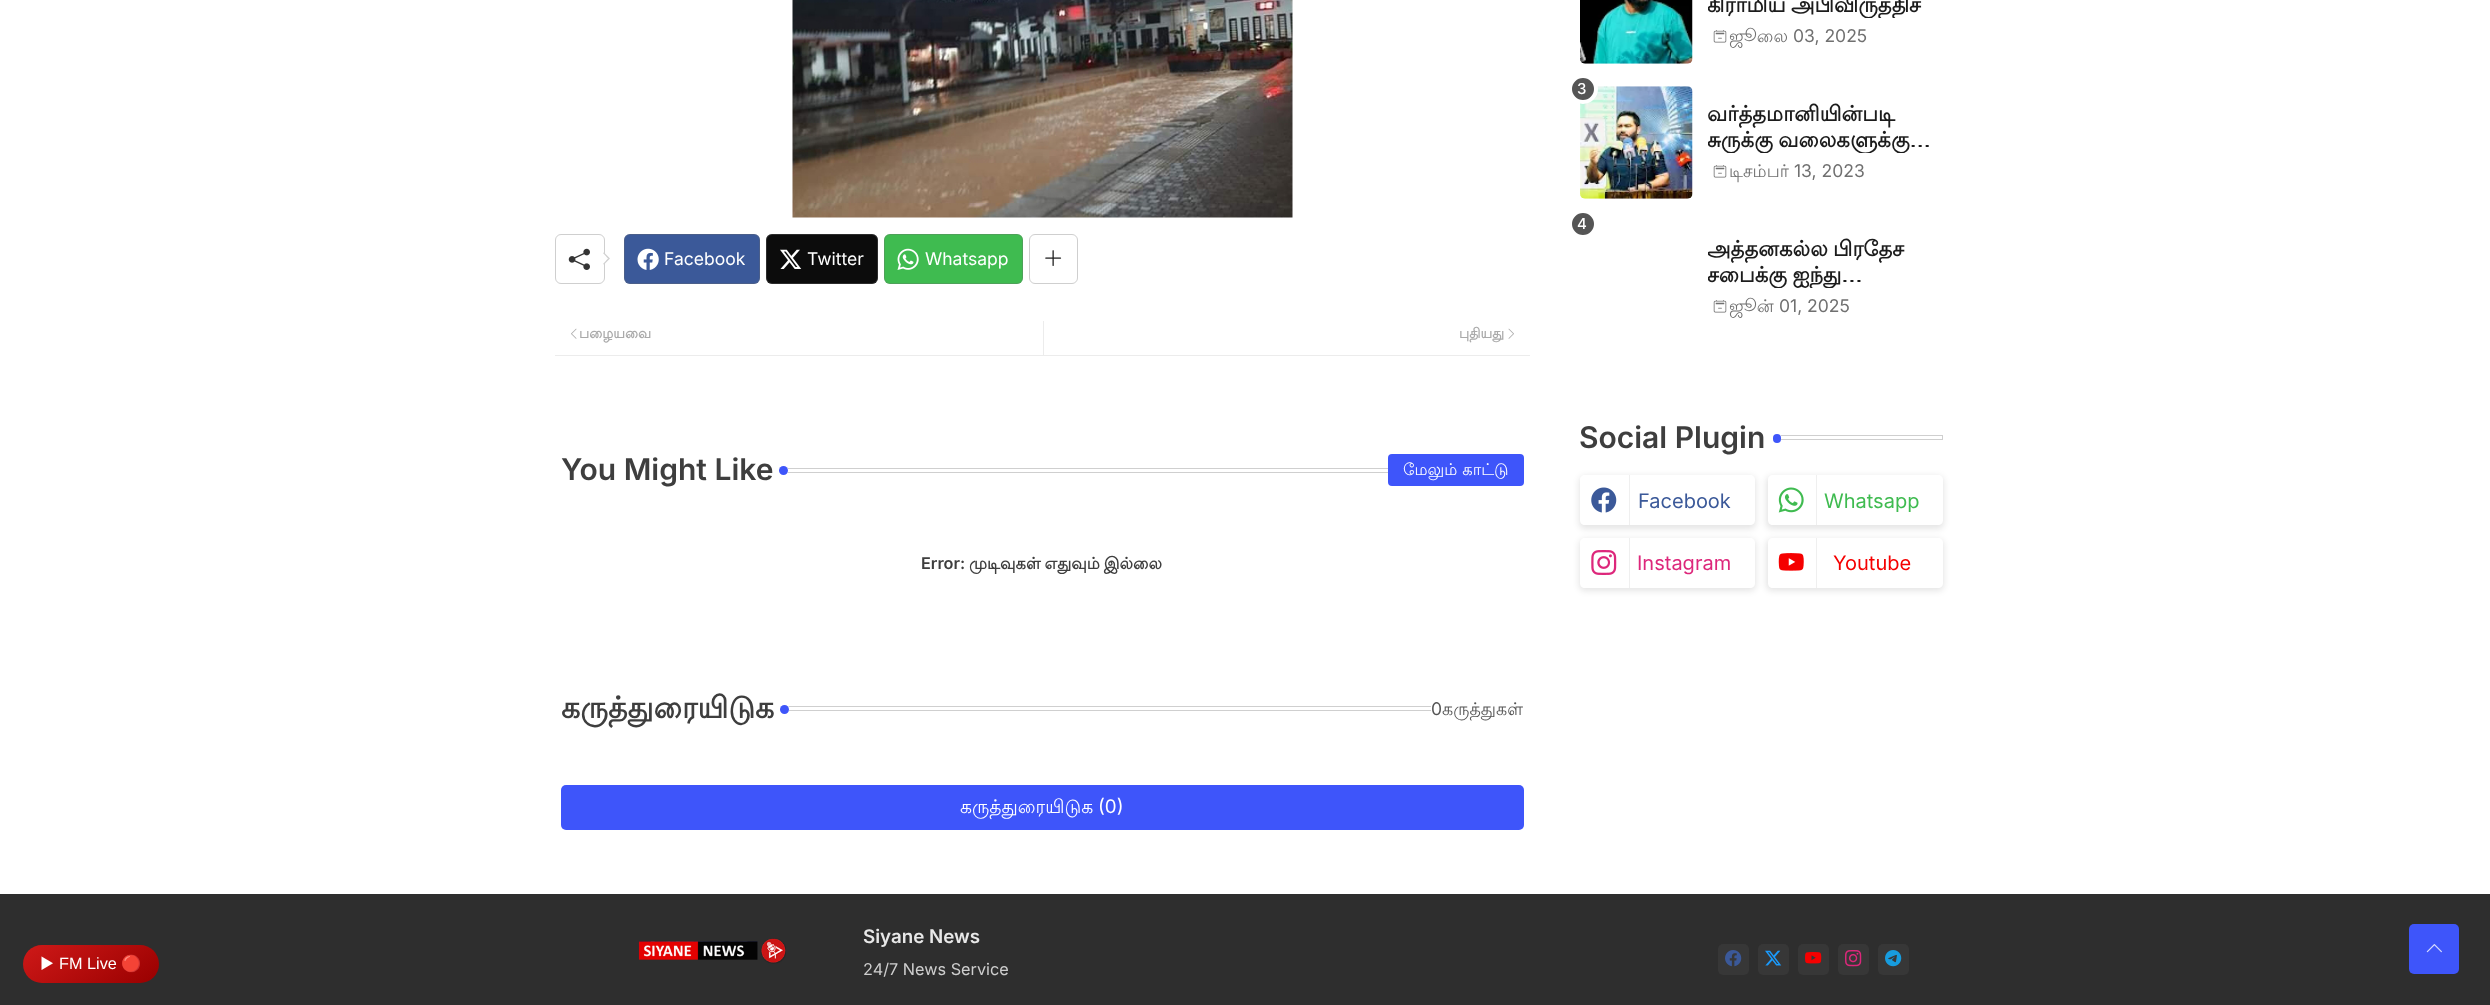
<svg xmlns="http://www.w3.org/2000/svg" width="2490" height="1005">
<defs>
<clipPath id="clip1"><rect x="1708" width="235" height="18"/></clipPath>
<clipPath id="clip2"><rect x="1708" y="101" width="235" height="52"/></clipPath>
<clipPath id="clip3"><rect x="1708" y="236" width="235" height="52"/></clipPath>
<clipPath id="clip4"><path d="M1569 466h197v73h-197zm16 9h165c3 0 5 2 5 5v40c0 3-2 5-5 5h-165c-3 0-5-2-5-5v-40c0-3 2-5 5-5z" clip-rule="evenodd"/></clipPath>
<clipPath id="clip5"><path d="M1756 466h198v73h-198zm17 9h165c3 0 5 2 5 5v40c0 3-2 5-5 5h-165c-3 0-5-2-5-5v-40c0-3 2-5 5-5z" clip-rule="evenodd"/></clipPath>
<clipPath id="clip6"><path d="M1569 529h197v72h-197zm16 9h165c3 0 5 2 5 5v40c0 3-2 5-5 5h-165c-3 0-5-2-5-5v-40c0-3 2-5 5-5z" clip-rule="evenodd"/></clipPath>
<clipPath id="clip7"><path d="M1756 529h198v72h-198zm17 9h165c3 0 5 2 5 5v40c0 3-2 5-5 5h-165c-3 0-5-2-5-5v-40c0-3 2-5 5-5z" clip-rule="evenodd"/></clipPath>
<linearGradient id="g1" gradientUnits="userSpaceOnUse" x1="59" y1="919" x2="122" y2="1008"><stop offset="0" stop-color="#cf1918"/><stop offset="1" stop-color="#900"/></linearGradient>
</defs>
<rect width="100%" height="100%" fill="#fff"/>
<image x="1580" y="0" width="113" height="64" href="media/1.png"/>
<g clip-path="url(#clip1)">
<text x="1707" y="12" word-spacing="-1" style="font-family:Lohit Tamil;font-size:21.25px;font-weight:bold;fill:#1c1c1c">கிராமிய அபிவிருத்திச்</text>
</g>
<image x="1713" y="30" width="14" height="13" href="media/2.png"/>
<text x="1729" y="42" style="font-family:Lohit Tamil;font-size:17.5px;fill:#707070">ஜூலை</text>
<text x="1793" y="42" style="font-family:Inter;font-size:17.5px;fill:#707070">03, 2025</text>
<image x="1580" y="86" width="113" height="113" href="media/3.png"/>
<circle cx="1583" cy="89" r="13" fill="#555" stroke="#fff" stroke-width="4"/>
<text x="1577" y="94" style="font-family:Inter;font-size:15px;font-weight:500;fill:#fff">3</text>
<text x="1707" y="121" style="font-family:Lohit Tamil;font-size:21.25px;font-weight:bold;fill:#1c1c1c">வர்த்தமானியின்படி</text>
<g clip-path="url(#clip2)">
<text x="1707" y="147" word-spacing="-1" style="font-family:Lohit Tamil;font-size:21.25px;font-weight:bold;fill:#1c1c1c">சுருக்கு வலைகளுக்கு…</text>
</g>
<image x="1713" y="165" width="14" height="13" href="media/2.png"/>
<text x="1729" y="177" style="font-family:Lohit Tamil;font-size:17.5px;fill:#707070">டிசம்பர்</text>
<text x="1794" y="177" style="font-family:Inter;font-size:17.5px;fill:#707070">13, 2023</text>
<circle cx="1583" cy="224" r="13" fill="#555" stroke="#fff" stroke-width="4"/>
<text x="1577" y="229" style="font-family:Inter;font-size:15px;font-weight:500;fill:#fff">4</text>
<g clip-path="url(#clip3)">
<text x="1707" y="256" style="font-family:Lohit Tamil;font-size:21.25px;font-weight:bold;fill:#1c1c1c">அத்தனகல்ல</text>
</g>
<text x="1833" y="256" style="font-family:Lohit Tamil;font-size:21.25px;font-weight:bold;fill:#1c1c1c">பிரதேச</text>
<g clip-path="url(#clip3)">
<text x="1707" y="282" word-spacing="-1" style="font-family:Lohit Tamil;font-size:21.25px;font-weight:bold;fill:#1c1c1c">சபைக்கு ஐந்து…</text>
</g>
<image x="1713" y="300" width="14" height="13" href="media/2.png"/>
<text x="1729" y="312" style="font-family:Lohit Tamil;font-size:17.5px;fill:#707070">ஜூன்</text>
<text x="1779" y="312" style="font-family:Inter;font-size:17.5px;fill:#707070">01, 2025</text>
<rect x="1580.5" y="435.5" width="362" height="4" fill="none" stroke="#cfcfcf"/>
<rect x="1580" y="435" width="201" height="5" fill="#fff"/>
<text x="1579" y="448" style="font-family:Inter;font-size:30px;font-weight:600;fill:#3e3e3e">Social Plugin</text>
<rect x="1773" y="434" width="8" height="9" rx="4" fill="#3e55fa"/>
<g clip-path="url(#clip4)">
<rect x="1579" y="476" width="177" height="53" rx="6" fill="#0000001a" filter="blur(3px)"/>
</g>
<rect x="1629" y="475" width="1" height="50" fill="#efefef"/>
<image x="1591" y="487" width="26" height="26" href="media/4.png"/>
<text x="1638" y="508" style="font-family:Inter;font-size:20px;fill:#3b5999">Facebook</text>
<g clip-path="url(#clip5)">
<rect x="1766" y="476" width="178" height="53" rx="6" fill="#0000001a" filter="blur(3px)"/>
</g>
<rect x="1816" y="475" width="1" height="50" fill="#efefef"/>
<image x="1778" y="487" width="26" height="26" href="media/5.png"/>
<text x="1824" y="508" style="font-family:Inter;font-size:20px;fill:#3fbb50">Whatsapp</text>
<g clip-path="url(#clip6)">
<rect x="1579" y="539" width="177" height="52" rx="6" fill="#0000001a" filter="blur(3px)"/>
</g>
<rect x="1629" y="538" width="1" height="50" fill="#a1a1a12b"/>
<image x="1591" y="550" width="26" height="25" href="media/6.png"/>
<text x="1637" y="570" style="font-family:Inter;font-size:20px;fill:#dd277b">Instagram</text>
<g clip-path="url(#clip7)">
<rect x="1766" y="539" width="178" height="52" rx="6" fill="#0000001a" filter="blur(3px)"/>
</g>
<rect x="1816" y="538" width="1" height="50" fill="#a1a1a12b"/>
<image x="1778" y="553" width="26" height="18" href="media/7.png"/>
<text x="1833" y="570" style="font-family:Inter;font-size:20px;fill:#f50000">Youtube</text>
<rect y="894" width="2490" height="111" fill="#2e2e2e"/>
<rect x="23" y="945" width="136" height="38" rx="19" fill="url(#g1)"/>
<text x="40" y="969" style="font-family:FreeSans;font-size:16.25px;fill:#fff">▶</text>
<text x="59" y="969" style="font-family:Liberation Sans;font-size:16.25px;fill:#fff">FM Live</text>
<text x="121" y="969" style="font-family:Noto Color Emoji;font-size:16.25px;fill:#fff">🔴</text>
<image x="792" y="0" width="501" height="218" href="media/8.png"/>
<rect x="555.5" y="234.5" width="49" height="49" rx="5.5" fill="none" stroke="#cfcfcf"/>
<image x="568" y="248" width="22" height="22" href="media/9.png"/>
<path d="M604 252.5l6 6l-6 6l-6.5-6z" fill="#fff"/>
<path d="M604 252.5l6 6h-2l-5-5.5z" fill="#6e6e6e54"/>
<path d="M610 258.5l-6 6l-1-.5l5-5.5z" fill="#6e6e6e54"/>
<rect x="624" y="234" width="136" height="50" rx="6" fill="#3b5999"/>
<rect x="624.5" y="234.5" width="135" height="49" rx="5.5" fill="none" stroke="#6e6e6e54"/>
<image x="637" y="248" width="22" height="22" href="media/10.png"/>
<text x="664" y="265" style="font-family:Inter;font-size:17.5px;fill:#fff">Facebook</text>
<rect x="766" y="234" width="112" height="50" rx="6" fill="#0c0c0c"/>
<rect x="766.5" y="234.5" width="111" height="49" rx="5.5" fill="none" stroke="#6e6e6e54"/>
<image x="780" y="249" width="22" height="20" href="media/11.png"/>
<text x="807" y="265" style="font-family:Inter;font-size:17.5px;fill:#fff">Twitter</text>
<rect x="884" y="234" width="139" height="50" rx="6" fill="#3fbb50"/>
<rect x="884.5" y="234.5" width="138" height="49" rx="5.5" fill="none" stroke="#6e6e6e54"/>
<image x="897" y="248" width="22" height="22" href="media/12.png"/>
<text x="925" y="265" style="font-family:Inter;font-size:17.5px;fill:#fff">Whatsapp</text>
<rect x="1029.5" y="234.5" width="48" height="49" rx="5.5" fill="none" stroke="#cfcfcf"/>
<image x="1045" y="250" width="17" height="16" href="media/13.png"/>
<rect x="555" y="355" width="975" height="1" fill="#ececec"/>
<image x="571" y="328" width="6" height="11" href="media/14.png"/>
<text x="579" y="338" style="font-family:Lohit Tamil;font-size:13.75px;font-weight:bold;fill:#aaa">பழையவை</text>
<rect x="1043" y="321" width="1" height="34" fill="#ececec"/>
<text x="1459" y="338" style="font-family:Lohit Tamil;font-size:13.75px;font-weight:bold;fill:#aaa">புதியது</text>
<image x="1508" y="328" width="6" height="11" href="media/15.png"/>
<rect x="561.5" y="468.5" width="962" height="4" fill="none" stroke="#cfcfcf"/>
<rect x="561" y="468" width="227" height="5" fill="#fff"/>
<text x="561" y="480" style="font-family:Inter;font-size:30px;font-weight:600;fill:#3e3e3e">You Might Like</text>
<circle cx="783.5" cy="470.5" r="4.5" fill="#3e55fa"/>
<rect x="1388" y="454" width="136" height="32" rx="4" fill="#3e55fa"/>
<text x="1403" y="475" style="font-family:Lohit Tamil;font-size:16.25px;fill:#fff">மேலும் காட்டு</text>
<text x="921" y="569" style="font-family:Inter;font-size:16.25px;font-weight:600;fill:#3e3e3e">Error:</text>
<text x="969" y="569" word-spacing="-1" style="font-family:Lohit Tamil;font-size:16.25px;font-weight:bold;fill:#3e3e3e">முடிவுகள் எதுவும் இல்லை</text>
<rect x="561.5" y="706.5" width="962" height="4" fill="none" stroke="#cfcfcf"/>
<rect x="561" y="706" width="228" height="5" fill="#fff"/>
<text x="561" y="718" style="font-family:Lohit Tamil;font-size:30px;font-weight:bold;fill:#3e3e3e">கருத்துரையிடுக</text>
<circle cx="784.5" cy="709.5" r="4.5" fill="#3e55fa"/>
<rect x="1431" y="706" width="93" height="5" fill="#fff"/>
<text x="1431" y="715" style="font-family:Inter;font-size:17.5px;fill:#555">0</text>
<text x="1442" y="715" style="font-family:Lohit Tamil;font-size:17.5px;fill:#555">கருத்துகள்</text>
<rect x="561" y="785" width="963" height="45" rx="5" fill="#3e55fa"/>
<text x="960" y="813" style="font-family:Lohit Tamil;font-size:18.75px;fill:#fff">கருத்துரையிடுக</text>
<text x="1098" y="813" style="font-family:Inter;font-size:18.75px;fill:#fff">(0)</text>
<image x="638" y="938" width="148" height="26" href="media/16.png"/>
<text x="863" y="943" style="font-family:Inter;font-size:18.75px;font-weight:600;fill:#e8e8e8">Siyane News</text>
<text x="863" y="975" style="font-family:Inter;font-size:16.25px;fill:#cecece">24/7 News Service</text>
<rect x="1718" y="944" width="31" height="31" rx="5" fill="#373737"/>
<image x="1725" y="950" width="17" height="17" href="media/17.png"/>
<rect x="1758" y="944" width="31" height="31" rx="5" fill="#373737"/>
<image x="1765" y="950" width="17" height="16" href="media/18.png"/>
<rect x="1798" y="944" width="31" height="31" rx="5" fill="#373737"/>
<image x="1805" y="952" width="17" height="12" href="media/19.png"/>
<rect x="1838" y="944" width="31" height="31" rx="5" fill="#373737"/>
<image x="1845" y="950" width="17" height="17" href="media/20.png"/>
<rect x="1878" y="944" width="31" height="31" rx="5" fill="#373737"/>
<image x="1885" y="950" width="17" height="17" href="media/21.png"/>
<rect x="2409" y="924" width="50" height="50" rx="5" fill="#3e55fa"/>
<image x="2426" y="944" width="16" height="9" href="media/22.png"/>
</svg>
